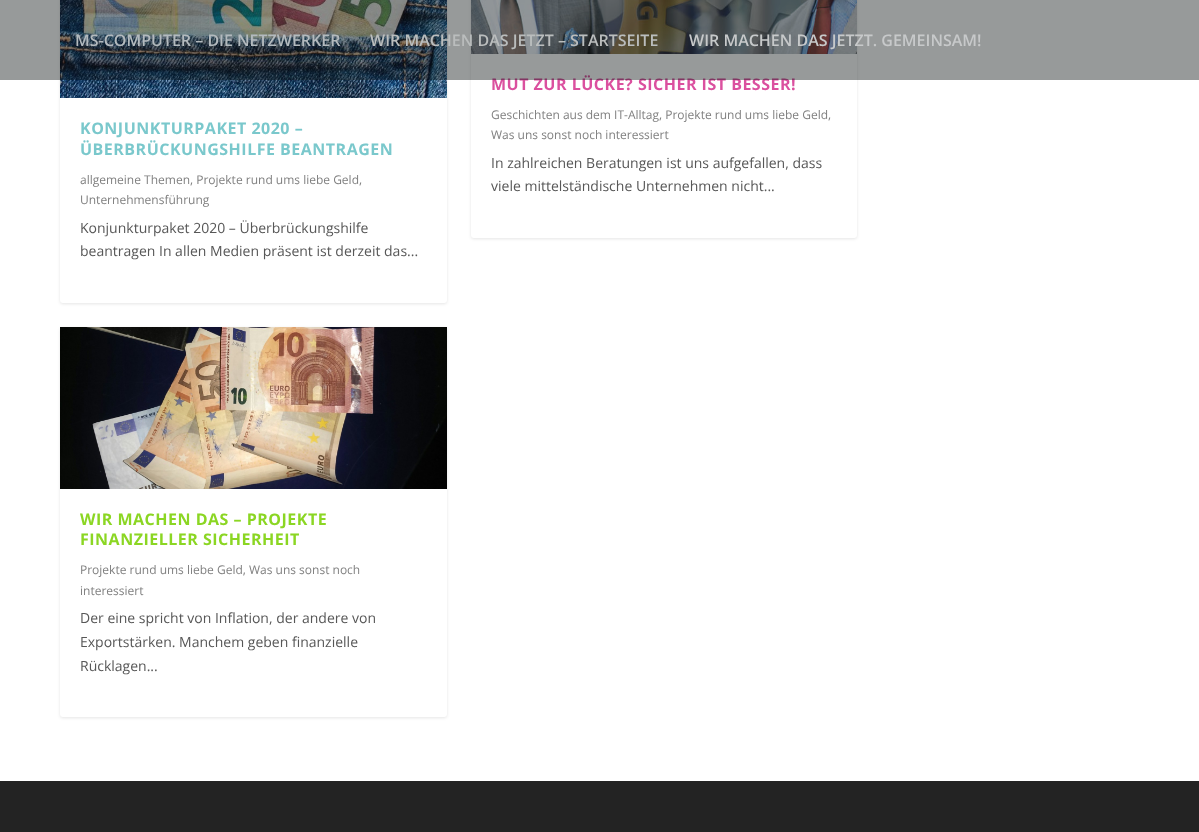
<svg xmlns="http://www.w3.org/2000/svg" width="1199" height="832">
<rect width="100%" height="100%" fill="#fff"/>
<rect x="60" y="-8" width="387" height="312" rx="3" fill="#0000001a" filter="blur(1.5px)"/>
<rect x="60" y="-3" width="387" height="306" rx="3" fill="#fff"/>
<image x="60" y="0" width="387" height="98" href="media/1.png"/>
<rect x="471" y="-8" width="386" height="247" rx="3" fill="#0000001a" filter="blur(1.5px)"/>
<rect x="471" y="-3" width="386" height="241" rx="3" fill="#fff"/>
<image x="471" y="0" width="386" height="54" href="media/3.png"/>
<text x="491" y="90" style="font-family:Open Sans;font-size:16px;font-weight:bold;letter-spacing:0.5px;fill:#db509f">MUT ZUR LÜCKE? SICHER IST BESSER!</text>
<rect width="1199" height="80" fill="#0e16166e"/>
<text x="75" y="46" style="font-family:Open Sans;font-size:16px;font-weight:600;fill:#b3babe">MS-COMPUTER – DIE NETZWERKER</text>
<text x="370" y="46" style="font-family:Open Sans;font-size:16px;font-weight:600;fill:#babdbd">WIR MACHEN DAS JETZT – STARTSEITE</text>
<text x="689" y="46" style="font-family:Open Sans;font-size:16px;font-weight:600;fill:#c7c9ca">WIR MACHEN DAS JETZT. GEMEINSAM!</text>
<text x="80" y="134" style="font-family:Open Sans;font-size:16px;font-weight:bold;letter-spacing:0.5px;fill:#7ac8cc">KONJUNKTURPAKET 2020 –</text>
<text x="80" y="155" style="font-family:Open Sans;font-size:16px;font-weight:bold;letter-spacing:0.5px;fill:#7ac8cc">ÜBERBRÜCKUNGSHILFE BEANTRAGEN</text>
<text x="80" y="184" style="font-family:Open Sans;font-size:12px;fill:#808080">allgemeine Themen, Projekte rund ums liebe Geld,</text>
<text x="80" y="204" style="font-family:Open Sans;font-size:12px;fill:#808080">Unternehmensführung</text>
<text x="80" y="233" style="font-family:Open Sans;font-size:14px;fill:#575757">Konjunkturpaket 2020 – Überbrückungshilfe</text>
<text x="80" y="256" style="font-family:Open Sans;font-size:14px;fill:#575757">beantragen In allen Medien präsent ist derzeit das...</text>
<rect x="60" y="328" width="387" height="390" rx="3" fill="#0000001a" filter="blur(1.5px)"/>
<rect x="60" y="327" width="387" height="390" rx="3" fill="#fff"/>
<image x="60" y="327" width="387" height="162" href="media/2.png"/>
<text x="80" y="525" style="font-family:Open Sans;font-size:16px;font-weight:bold;letter-spacing:0.5px;fill:#8bd623">WIR MACHEN DAS – PROJEKTE</text>
<text x="80" y="545" style="font-family:Open Sans;font-size:16px;font-weight:bold;letter-spacing:0.5px;fill:#8bd623">FINANZIELLER SICHERHEIT</text>
<text x="80" y="574" style="font-family:Open Sans;font-size:12px;fill:#808080">Projekte rund ums liebe Geld, Was uns sonst noch</text>
<text x="80" y="595" style="font-family:Open Sans;font-size:12px;fill:#808080">interessiert</text>
<text x="80" y="623" style="font-family:Open Sans;font-size:14px;fill:#575757">Der eine spricht von Inflation, der andere von</text>
<text x="80" y="647" style="font-family:Open Sans;font-size:14px;fill:#575757">Exportstärken. Manchem geben finanzielle</text>
<text x="80" y="671" style="font-family:Open Sans;font-size:14px;fill:#575757">Rücklagen...</text>
<text x="491" y="119" style="font-family:Open Sans;font-size:12px;fill:#808080">Geschichten aus dem IT-Alltag, Projekte rund ums liebe Geld,</text>
<text x="491" y="139" style="font-family:Open Sans;font-size:12px;fill:#808080">Was uns sonst noch interessiert</text>
<text x="491" y="168" style="font-family:Open Sans;font-size:14px;fill:#575757">In zahlreichen Beratungen ist uns aufgefallen, dass</text>
<text x="491" y="191" style="font-family:Open Sans;font-size:14px;fill:#575757">viele mittelständische Unternehmen nicht...</text>
<rect y="781" width="1199" height="51" fill="#232323"/>
</svg>
